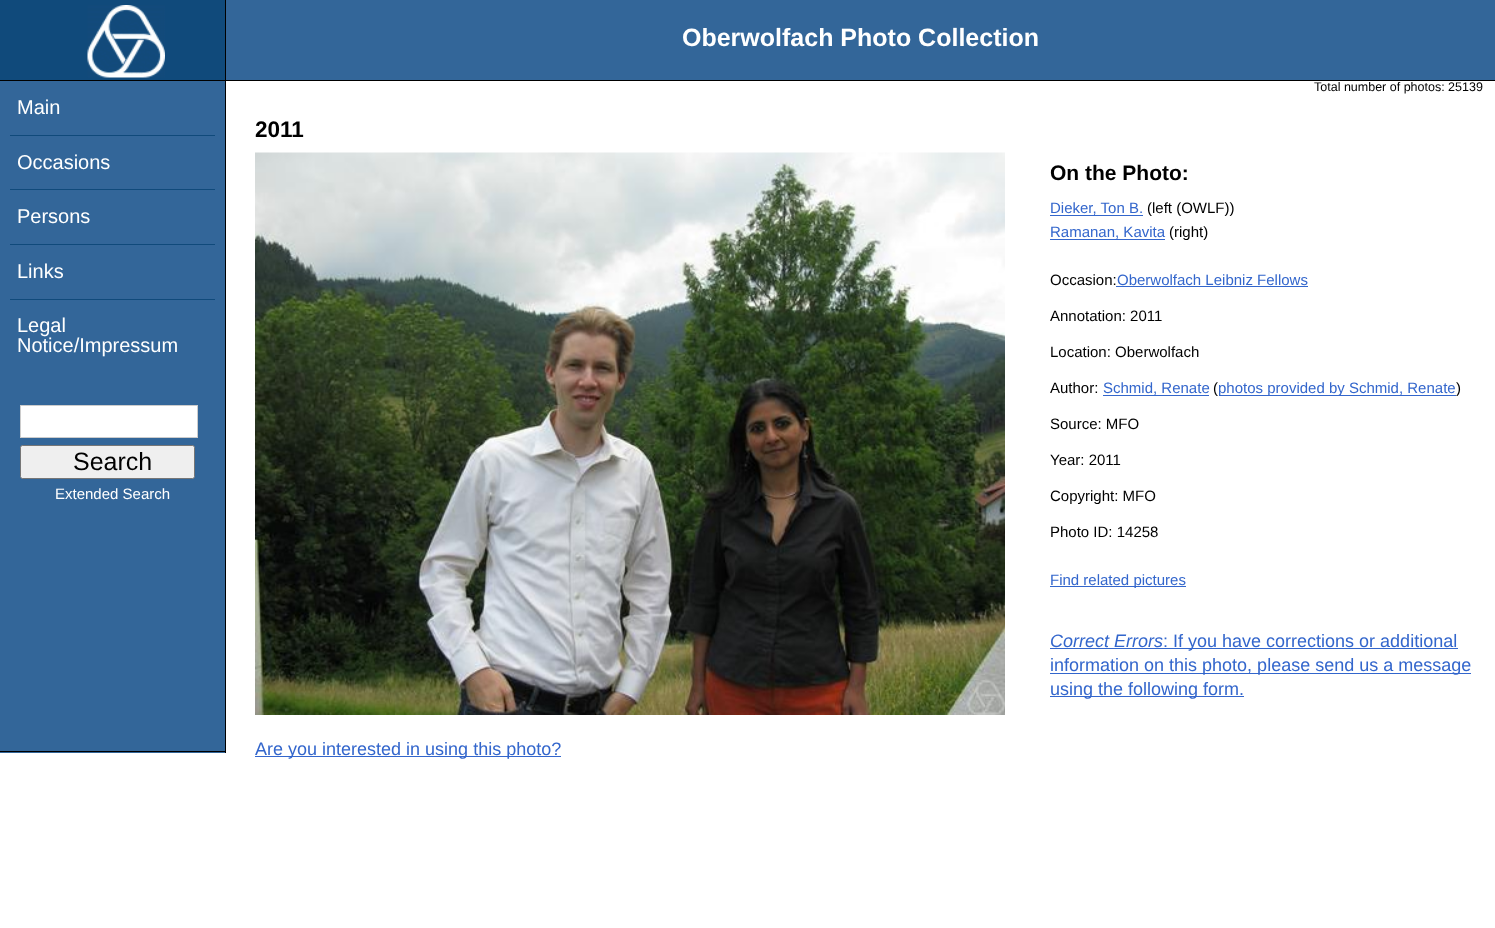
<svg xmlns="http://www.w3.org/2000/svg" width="1495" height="928">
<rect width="100%" height="100%" fill="#fff"/>
<rect x="226" width="1269" height="80" fill="#369"/>
<rect y="80" width="1495" height="1" fill="#000"/>
<rect width="225" height="80" fill="#104a7b"/>
<rect x="225" width="1" height="80" fill="#000"/>
<image x="87" y="5" width="78" height="73" href="media/1.png"/>
<text x="682" y="46" style="font-family:Liberation Sans;font-size:25px;font-weight:bold;fill:#fff">Oberwolfach Photo Collection</text>
<text x="1314" y="91" style="font-family:Liberation Sans;font-size:12.5px;fill:#000">Total number of photos: 25139</text>
<rect y="81" width="225" height="672" fill="#369"/>
<rect x="225" y="81" width="1" height="672" fill="#000"/>
<rect y="751" width="226" height="1" fill="#000"/>
<text x="17" y="114" style="font-family:Liberation Sans;font-size:20px;fill:#fff">Main</text>
<rect x="10" y="135" width="205" height="1" fill="#104a7b"/>
<text x="17" y="169" style="font-family:Liberation Sans;font-size:20px;fill:#fff">Occasions</text>
<rect x="10" y="189" width="205" height="1" fill="#104a7b"/>
<text x="17" y="223" style="font-family:Liberation Sans;font-size:20px;fill:#fff">Persons</text>
<rect x="10" y="244" width="205" height="1" fill="#104a7b"/>
<text x="17" y="278" style="font-family:Liberation Sans;font-size:20px;fill:#fff">Links</text>
<rect x="10" y="299" width="205" height="1" fill="#104a7b"/>
<text x="17" y="332" style="font-family:Liberation Sans;font-size:20px;fill:#fff">Legal</text>
<text x="17" y="352" style="font-family:Liberation Sans;font-size:20px;fill:#fff">Notice/Impressum</text>
<rect x="20.5" y="405.5" width="177" height="32" fill="#fff" stroke="#ccc"/>
<rect x="20.5" y="445.5" width="174" height="33" rx="2" fill="#efefef" stroke="#767676"/>
<text x="73" y="470" style="font-family:Liberation Sans;font-size:25px;fill:#000">Search</text>
<text x="55" y="499" style="font-family:Liberation Sans;font-size:15px;fill:#fff">Extended Search</text>
<text x="255" y="137" style="font-family:Liberation Sans;font-size:22.5px;font-weight:bold;fill:#000">2011</text>
<image x="255" y="152" width="750" height="563" href="media/2.png"/>
<text x="1050" y="180" style="font-family:Liberation Sans;font-size:21px;font-weight:bold;fill:#000">On the Photo:</text>
<text x="1050" y="213" style="font-family:Liberation Sans;font-size:15px;fill:#36c">Dieker, Ton B.</text>
<rect x="1050" y="215" width="93" height="1" fill="#36c"/>
<text x="1147" y="213" style="font-family:Liberation Sans;font-size:15px;fill:#000">(left (OWLF))</text>
<text x="1050" y="237" style="font-family:Liberation Sans;font-size:15px;fill:#36c">Ramanan, Kavita</text>
<rect x="1050" y="239" width="115" height="1" fill="#36c"/>
<text x="1169" y="237" style="font-family:Liberation Sans;font-size:15px;fill:#000">(right)</text>
<text x="1050" y="285" style="font-family:Liberation Sans;font-size:15px;fill:#000">Occasion:</text>
<text x="1117" y="285" style="font-family:Liberation Sans;font-size:15px;fill:#36c">Oberwolfach Leibniz Fellows</text>
<rect x="1116" y="286" width="192" height="1" fill="#36c"/>
<text x="1050" y="321" style="font-family:Liberation Sans;font-size:15px;fill:#000">Annotation: 2011</text>
<text x="1050" y="357" style="font-family:Liberation Sans;font-size:15px;fill:#000">Location: Oberwolfach</text>
<text x="1050" y="393" style="font-family:Liberation Sans;font-size:15px;fill:#000">Author:</text>
<text x="1103" y="393" style="font-family:Liberation Sans;font-size:15px;fill:#36c">Schmid, Renate</text>
<rect x="1103" y="395" width="106" height="1" fill="#36c"/>
<text x="1213" y="393" style="font-family:Liberation Sans;font-size:15px;fill:#000">(</text>
<rect x="1219" y="395" width="237" height="1" fill="#36c"/>
<text x="1218" y="393" style="font-family:Liberation Sans;font-size:15px;fill:#36c">photos provided by Schmid, Renate</text>
<text x="1456" y="393" style="font-family:Liberation Sans;font-size:15px;fill:#000">)</text>
<text x="1050" y="429" style="font-family:Liberation Sans;font-size:15px;fill:#000">Source: MFO</text>
<text x="1050" y="465" style="font-family:Liberation Sans;font-size:15px;fill:#000">Year: 2011</text>
<text x="1050" y="501" style="font-family:Liberation Sans;font-size:15px;fill:#000">Copyright: MFO</text>
<text x="1050" y="537" style="font-family:Liberation Sans;font-size:15px;fill:#000">Photo ID: 14258</text>
<rect x="1050" y="586" width="136" height="1" fill="#36c"/>
<text x="1050" y="585" style="font-family:Liberation Sans;font-size:15px;fill:#36c">Find related pictures</text>
<text x="1050" y="647" style="font-family:Liberation Sans;font-size:18px;font-style:italic;fill:#36c">Correct Errors</text>
<rect x="1050" y="648" width="408" height="1" fill="#36c"/>
<text x="1163" y="647" style="font-family:Liberation Sans;font-size:18px;fill:#36c">: If you have corrections or additional</text>
<rect x="1050" y="673" width="421" height="1" fill="#36c"/>
<text x="1050" y="671" style="font-family:Liberation Sans;font-size:18px;fill:#36c">information on this photo, please send us a message</text>
<rect x="1050" y="696" width="194" height="1" fill="#36c"/>
<text x="1050" y="695" style="font-family:Liberation Sans;font-size:18px;fill:#36c">using the following form.</text>
<rect x="255" y="756" width="306" height="1" fill="#36c"/>
<text x="255" y="755" style="font-family:Liberation Sans;font-size:18px;fill:#36c">Are you interested in using this photo?</text>
</svg>
